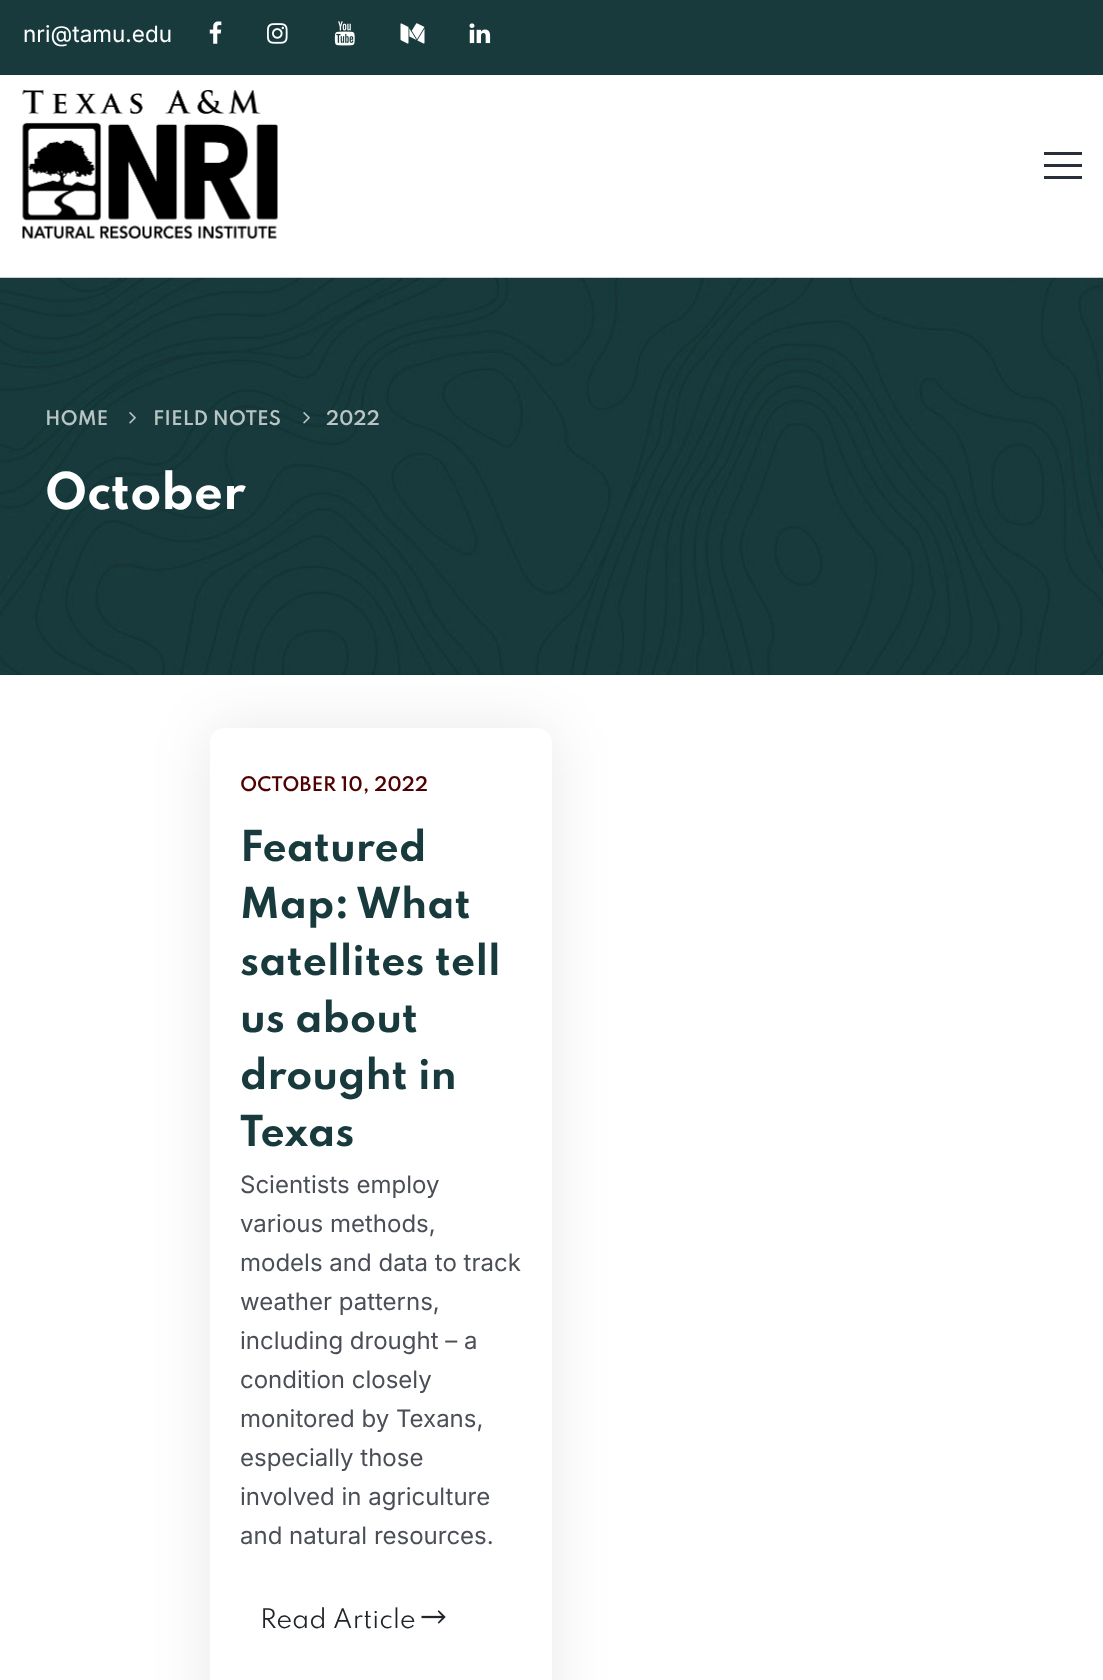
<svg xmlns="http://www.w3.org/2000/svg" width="1103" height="1680">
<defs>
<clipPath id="clip1"><path d="M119 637h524v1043h-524zm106 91h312c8.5 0 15 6.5 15 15v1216c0 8.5-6.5 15-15 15h-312c-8.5 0-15-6.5-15-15v-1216c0-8.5 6.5-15 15-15z" clip-rule="evenodd"/></clipPath>
</defs>
<rect width="100%" height="100%" fill="#fff"/>
<rect width="1103" height="75" fill="#183a3d"/>
<text x="23" y="42" style="font-family:Inter;font-size:22.5px;fill:#fff">nri@tamu.edu</text>
<image x="209" y="21" width="13" height="23" href="media/1.png"/>
<image x="267" y="23" width="21" height="21" href="media/2.png"/>
<image x="334" y="21" width="21" height="25" href="media/3.png"/>
<image x="400" y="23" width="25" height="21" href="media/4.png"/>
<image x="469" y="23" width="22" height="21" href="media/5.png"/>
<image x="22" y="90" width="256" height="149" href="media/6.png"/>
<rect x="1044" y="152" width="38" height="3" fill="#282f3b"/>
<rect x="1044" y="164" width="38" height="3" fill="#282f3b"/>
<rect x="1044" y="176" width="38" height="3" fill="#282f3b"/>
<image x="0" y="277" width="1103" height="398" href="media/7.png"/>
<g clip-path="url(#clip1)">
<rect x="210" y="728" width="342" height="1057" rx="15" fill="#00000017" filter="blur(30px)"/>
</g>
<rect y="281" width="1103" height="392" fill="#183a3d40"/>
<text x="45" y="425" style="font-family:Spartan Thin;font-size:18px;font-weight:600;fill:#b9c4c4">HOME</text>
<image x="129" y="412" width="7" height="12" href="media/8.png"/>
<text x="153" y="425" style="font-family:Spartan Thin;font-size:18px;font-weight:600;fill:#b9c4c4">FIELD NOTES</text>
<image x="303" y="412" width="7" height="12" href="media/9.png"/>
<text x="326" y="425" style="font-family:Spartan Thin;font-size:18px;font-weight:600;fill:#b9c4c4">2022</text>
<text x="45" y="509" style="font-family:Spartan Thin;font-size:45px;font-weight:bold;fill:#fff">October</text>
<text x="240" y="791" style="font-family:Spartan Thin;font-size:18px;font-weight:600;fill:#500000">OCTOBER 10, 2022</text>
<text x="240" y="861" style="font-family:Spartan Thin;font-size:37.75px;font-weight:bold;fill:#183a3d">Featured</text>
<text x="240" y="918" style="font-family:Spartan Thin;font-size:37.75px;font-weight:bold;fill:#183a3d">Map: What</text>
<text x="240" y="975" style="font-family:Spartan Thin;font-size:37.75px;font-weight:bold;fill:#183a3d">satellites tell</text>
<text x="240" y="1032" style="font-family:Spartan Thin;font-size:37.75px;font-weight:bold;fill:#183a3d">us about</text>
<text x="240" y="1089" style="font-family:Spartan Thin;font-size:37.75px;font-weight:bold;fill:#183a3d">drought in</text>
<text x="240" y="1146" style="font-family:Spartan Thin;font-size:37.75px;font-weight:bold;fill:#183a3d">Texas</text>
<text x="240" y="1193" style="font-family:Inter;font-size:24px;fill:#4a4e56">Scientists employ</text>
<text x="240" y="1232" style="font-family:Inter;font-size:24px;fill:#4a4e56">various methods,</text>
<text x="240" y="1271" style="font-family:Inter;font-size:24px;fill:#4a4e56">models and data to track</text>
<text x="240" y="1310" style="font-family:Inter;font-size:24px;fill:#4a4e56">weather patterns,</text>
<text x="240" y="1349" style="font-family:Inter;font-size:24px;fill:#4a4e56">including drought – a</text>
<text x="240" y="1388" style="font-family:Inter;font-size:24px;fill:#4a4e56">condition closely</text>
<text x="240" y="1427" style="font-family:Inter;font-size:24px;fill:#4a4e56">monitored by Texans,</text>
<text x="240" y="1466" style="font-family:Inter;font-size:24px;fill:#4a4e56">especially those</text>
<text x="240" y="1505" style="font-family:Inter;font-size:24px;fill:#4a4e56">involved in agriculture</text>
<text x="240" y="1544" style="font-family:Inter;font-size:24px;fill:#4a4e56">and natural resources.</text>
<text x="260" y="1628" style="font-family:Spartan Thin;font-size:24px;fill:#212529">Read Article</text>
<image x="421" y="1610" width="25" height="14" href="media/10.png"/>
</svg>
